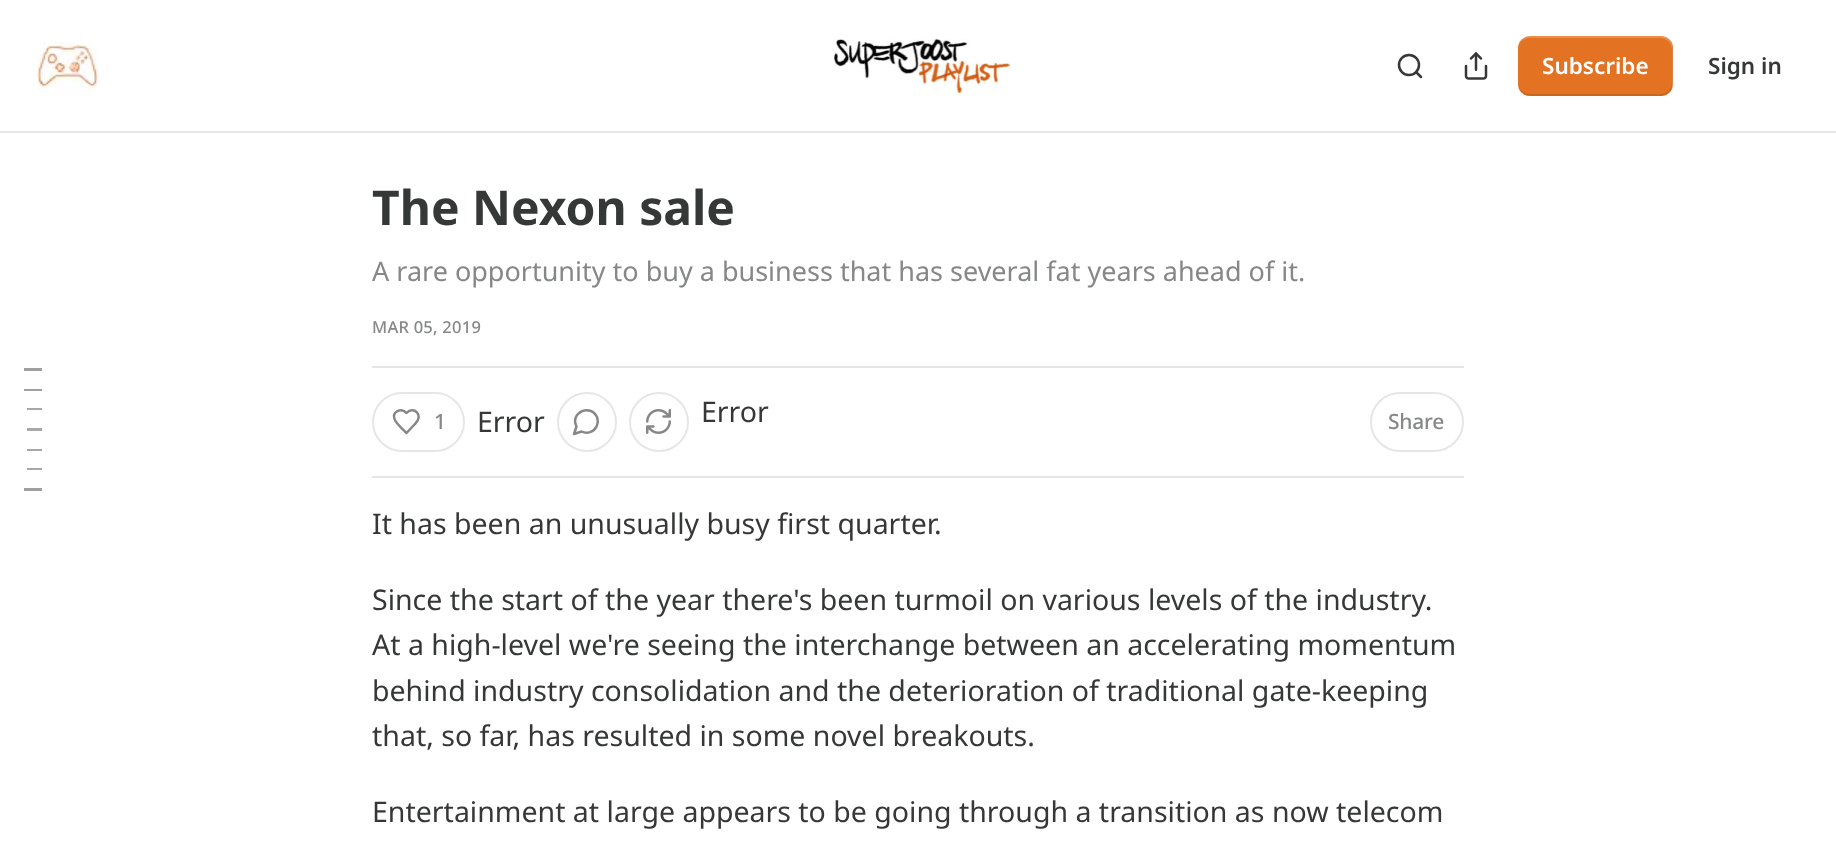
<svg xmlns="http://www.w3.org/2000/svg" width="1836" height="857">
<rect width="100%" height="100%" fill="#fff"/>
<rect y="131" width="1836" height="2" fill="#e6e6e6"/>
<image x="37" y="42" width="61" height="53" href="media/1.png"/>
<image x="834" y="39" width="176" height="54" href="media/2.png"/>
<circle cx="1409" cy="65" r="10" fill="none" stroke="#363737" stroke-width="2.5"/>
<path d="M1421 77l-5-5" fill="none" stroke="#363737" stroke-width="2.5" stroke-linecap="round" stroke-linejoin="round"/>
<image x="1464" y="52" width="24" height="28" href="media/3.png"/>
<rect x="1518" y="36" width="155" height="60" rx="12" fill="#e37222"/>
<path d="M1518 82v2c0 7 5 12 12 12h131c7 0 12-5 12-12v-36c0-2-1-5-2-7l1 5v36c0 7-5 12-12 12h-130c-7 0-12-5-12-12z" fill="#0000001a"/>
<path d="M1530 38h130c7 0 12 5 12 12v36l-1 5c1-2 2-5 2-7v-36c0-7-5-12-12-12h-131c-7 0-12 5-12 12v2c0-7 5-12 12-12z" fill="#ffffff33"/>
<text x="1542" y="74" style="font-family:Noto Sans;font-size:22.5px;font-weight:600;fill:#fff">Subscribe</text>
<text x="1708" y="74" style="font-family:Noto Sans;font-size:22.5px;font-weight:600;fill:#363737">Sign in</text>
<text x="372" y="225" style="font-family:Noto Sans;font-size:48px;font-weight:bold;fill:#363737">The Nexon sale</text>
<text x="372" y="281" style="font-family:Noto Sans;font-size:27px;fill:#868787">A rare opportunity to buy a business that has several fat years ahead of it.</text>
<text x="372" y="333" style="font-family:Noto Sans;font-size:16.5px;font-weight:500;letter-spacing:0.25px;fill:#868787">MAR 05, 2019</text>
<rect x="372" y="366" width="1092" height="2" fill="#e6e6e6"/>
<rect x="372" y="476" width="1092" height="2" fill="#e6e6e6"/>
<rect x="373" y="393" width="91" height="58" rx="29" fill="none" stroke="#e6e6e6" stroke-width="2"/>
<path d="M415 424c9.5-9-1.5-18.5-8.5-11c-5.5-5.5-14.5-1.5-12 6c1 4 9 11 12 14z" fill="none" stroke="#868787" stroke-width="2.5" stroke-linecap="round" stroke-linejoin="round"/>
<text x="434" y="429" style="font-family:Noto Sans;font-size:21px;font-weight:500;letter-spacing:-0.25px;fill:#868787">1</text>
<text x="477" y="432" style="font-family:Noto Sans;font-size:28.5px;fill:#363737">Error</text>
<circle cx="587" cy="422" r="29" fill="none" stroke="#e6e6e6" stroke-width="2"/>
<path d="M581.5 431.5c5.5 3 12.5 .5 15-5c1.5-3 1.5-6.5 .5-9.5c-6.5-14-27.5-4-20.5 9.5l-2.5 7.5z" fill="none" stroke="#868787" stroke-width="2.5" stroke-linecap="round" stroke-linejoin="round"/>
<circle cx="659" cy="422" r="29" fill="none" stroke="#e6e6e6" stroke-width="2"/>
<image x="646" y="409" width="25" height="25" href="media/4.png"/>
<text x="701" y="422" style="font-family:Noto Sans;font-size:28.5px;fill:#363737">Error</text>
<rect x="1371" y="393" width="92" height="58" rx="29" fill="none" stroke="#e6e6e6" stroke-width="2"/>
<text x="1388" y="429" style="font-family:Noto Sans;font-size:21px;font-weight:500;letter-spacing:-0.25px;fill:#868787">Share</text>
<rect x="24" y="368" width="18" height="3" fill="#9e9f9f"/>
<rect x="24" y="389" width="18" height="2" fill="#9e9f9f"/>
<rect x="27" y="408" width="15" height="2" fill="#a8a8a8"/>
<rect x="27" y="428" width="15" height="3" fill="#a8a8a8"/>
<rect x="27" y="449" width="15" height="2" fill="#a8a8a8"/>
<rect x="27" y="468" width="15" height="2" fill="#a8a8a8"/>
<rect x="24" y="488" width="18" height="3" fill="#9e9f9f"/>
<text x="372" y="534" style="font-family:Noto Sans;font-size:28.5px;fill:#363737">It has been an unusually busy first quarter.</text>
<text x="372" y="610" style="font-family:Noto Sans;font-size:28.5px;fill:#363737">Since the start of the year there's been turmoil on various levels of the industry.</text>
<text x="372" y="655" style="font-family:Noto Sans;font-size:28.5px;fill:#363737">At a high-level we're seeing the interchange between an accelerating momentum</text>
<text x="372" y="701" style="font-family:Noto Sans;font-size:28.5px;fill:#363737">behind industry consolidation and the deterioration of traditional gate-keeping</text>
<text x="372" y="746" style="font-family:Noto Sans;font-size:28.5px;fill:#363737">that, so far, has resulted in some novel breakouts.</text>
<text x="372" y="822" style="font-family:Noto Sans;font-size:28.5px;fill:#363737">Entertainment at large appears to be going through a transition as now telecom</text>
</svg>
